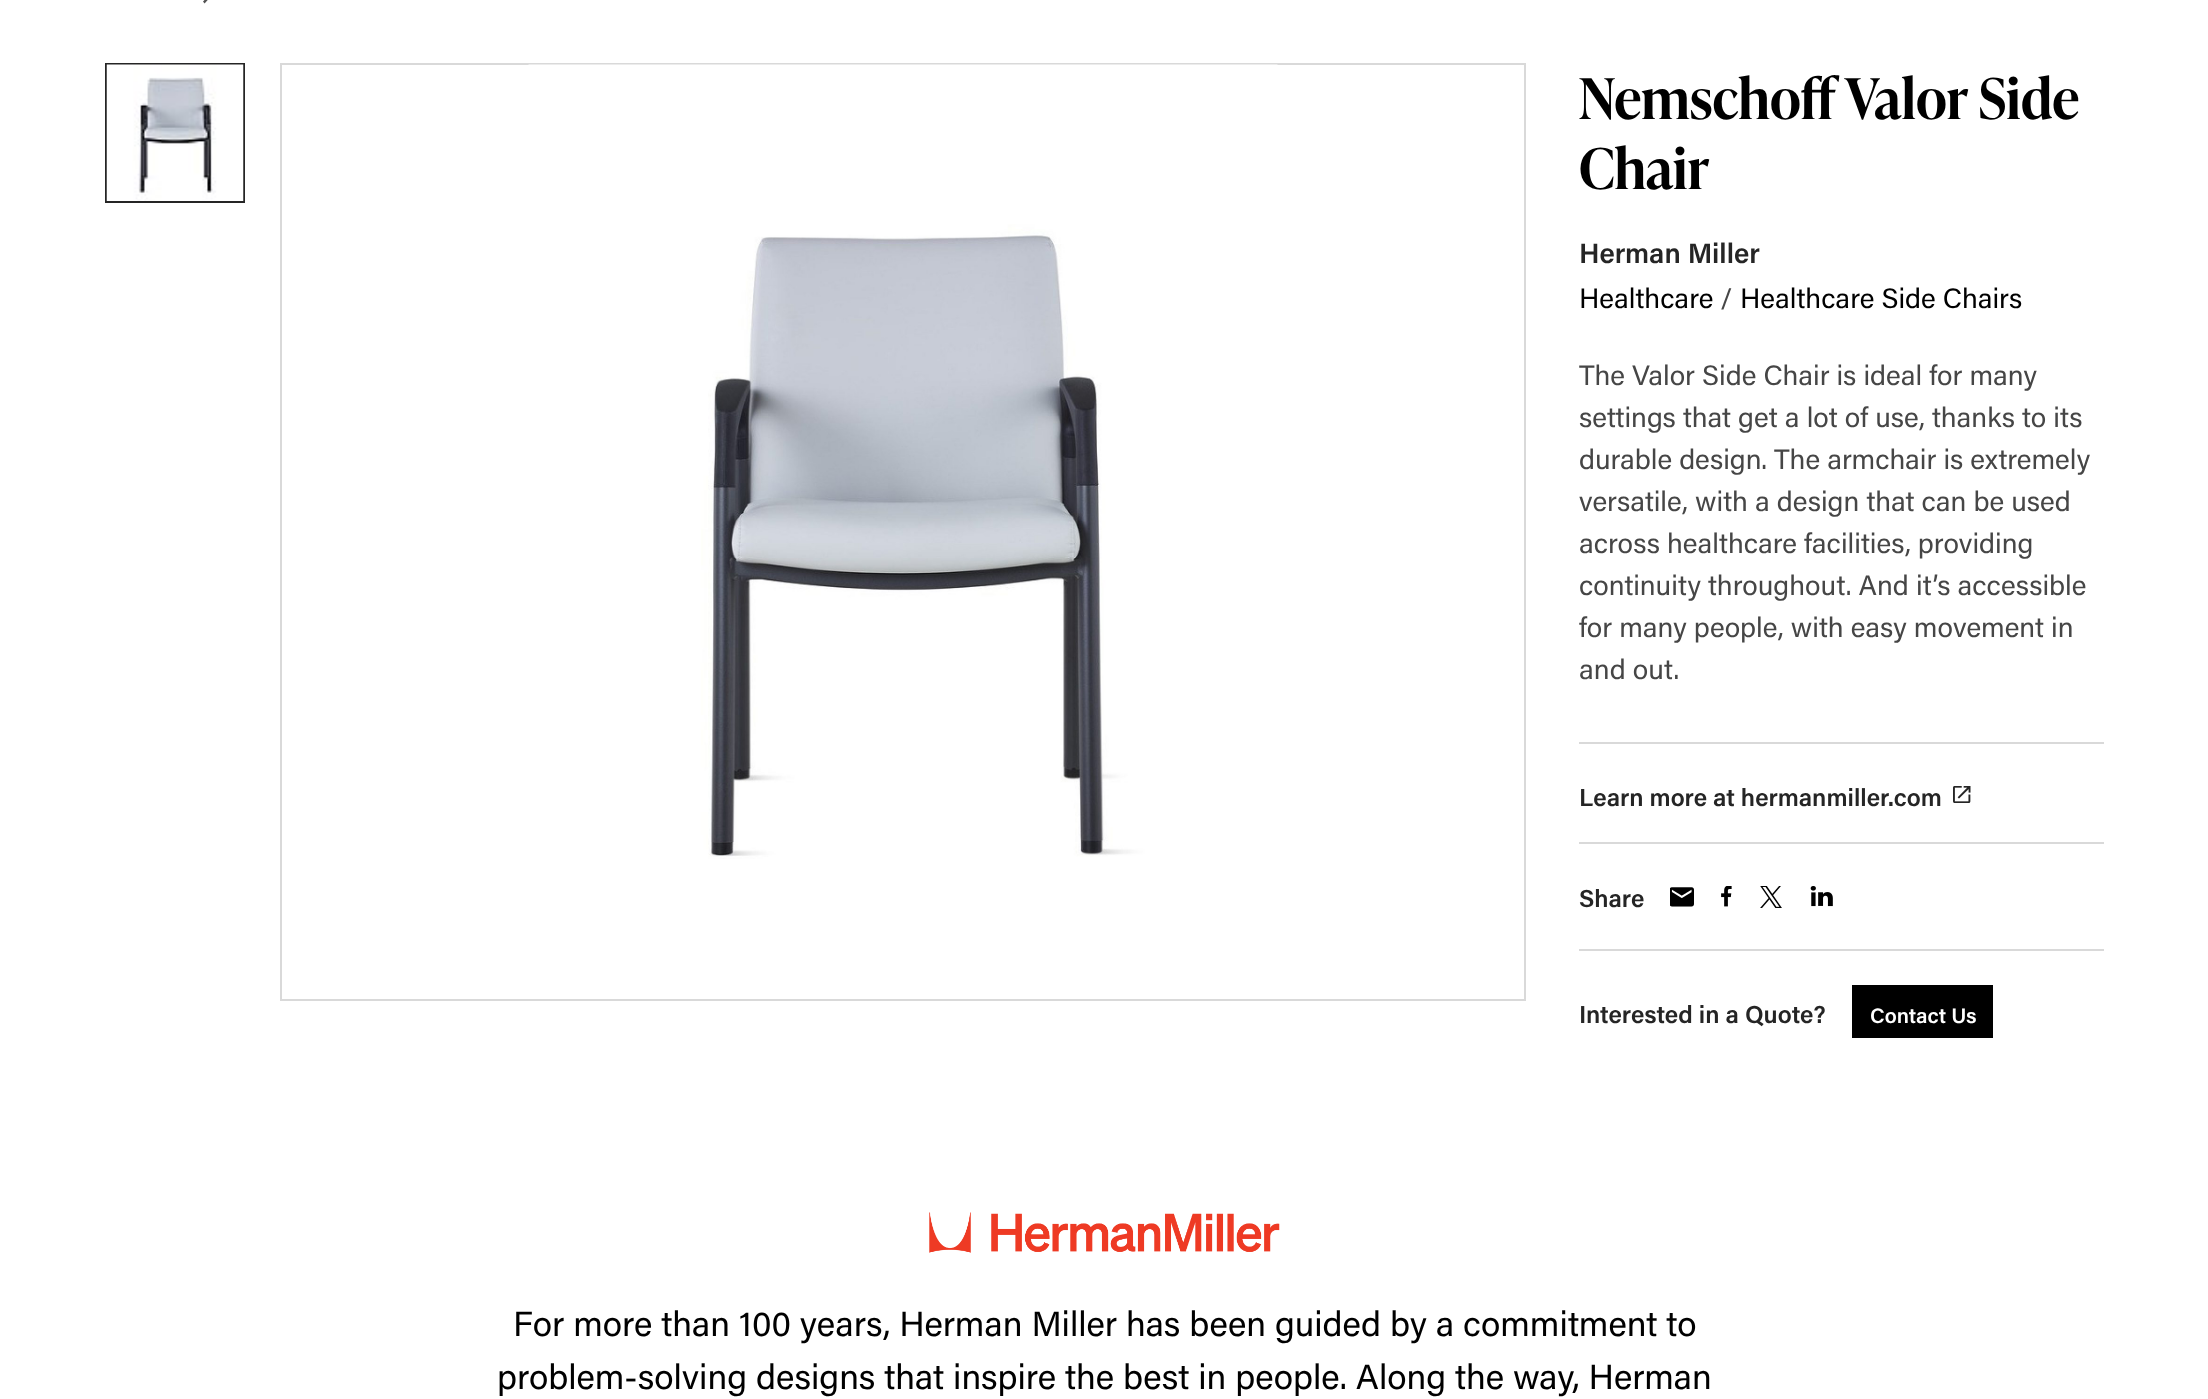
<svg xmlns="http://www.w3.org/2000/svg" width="2208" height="1399">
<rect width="100%" height="100%" fill="#fff"/>
<image x="203" y="0" width="5" height="4" href="media/1.png"/>
<rect x="106" y="64" width="138" height="138" fill="none" stroke="#252525" stroke-width="2"/>
<image x="106" y="64" width="138" height="137" href="media/2.png"/>
<rect x="281" y="64" width="1244" height="936" fill="none" stroke="#d9d9d9" stroke-width="2"/>
<image x="528" y="64" width="750" height="795" href="media/3.png"/>
<text x="1579" y="119" style="font-family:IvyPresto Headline;font-size:56px;font-weight:600;fill:#000">Nemschoff Valor Side</text>
<text x="1579" y="189" style="font-family:IvyPresto Headline;font-size:56px;font-weight:600;fill:#000">Chair</text>
<text x="1579" y="263" style="font-family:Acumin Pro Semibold;font-size:28px;font-weight:600;fill:#252525">Herman Miller</text>
<text x="1579" y="308" style="font-family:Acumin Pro;font-size:28px;fill:#000">Healthcare</text>
<text x="1720" y="308" style="font-family:Acumin Pro;font-size:28px;fill:#464646">/</text>
<text x="1740" y="308" style="font-family:Acumin Pro;font-size:28px;fill:#000">Healthcare Side Chairs</text>
<text x="1579" y="385" style="font-family:Acumin Pro;font-size:28px;fill:#464646">The Valor Side Chair is ideal for many</text>
<text x="1579" y="427" style="font-family:Acumin Pro;font-size:28px;fill:#464646">settings that get a lot of use, thanks to its</text>
<text x="1579" y="469" style="font-family:Acumin Pro;font-size:28px;fill:#464646">durable design. The armchair is extremely</text>
<text x="1579" y="511" style="font-family:Acumin Pro;font-size:28px;fill:#464646">versatile, with a design that can be used</text>
<text x="1579" y="553" style="font-family:Acumin Pro;font-size:28px;fill:#464646">across healthcare facilities, providing</text>
<text x="1579" y="595" style="font-family:Acumin Pro;font-size:28px;fill:#464646">continuity throughout. And it’s accessible</text>
<text x="1579" y="637" style="font-family:Acumin Pro;font-size:28px;fill:#464646">for many people, with easy movement in</text>
<text x="1579" y="679" style="font-family:Acumin Pro;font-size:28px;fill:#464646">and out.</text>
<rect x="1579" y="742" width="525" height="2" fill="#d9d9d9"/>
<text x="1579" y="806" style="font-family:Acumin Pro Semibold;font-size:24.5px;font-weight:600;fill:#252525">Learn more at hermanmiller.com</text>
<image x="1953" y="786" width="18" height="17" href="media/4.png"/>
<rect x="1579" y="842" width="525" height="2" fill="#d9d9d9"/>
<text x="1579" y="907" style="font-family:Acumin Pro Semibold;font-size:24.5px;font-weight:600;fill:#252525">Share</text>
<image x="1670" y="887" width="24" height="20" href="media/5.png"/>
<image x="1721" y="886" width="11" height="21" href="media/6.png"/>
<image x="1760" y="886" width="22" height="22" href="media/7.png"/>
<image x="1810" y="886" width="23" height="21" href="media/8.png"/>
<rect x="1579" y="949" width="525" height="2" fill="#d9d9d9"/>
<text x="1579" y="1023" style="font-family:Acumin Pro Semibold;font-size:24.5px;font-weight:600;fill:#252525">Interested in a Quote?</text>
<rect x="1852" y="985" width="141" height="53" fill="#000"/>
<text x="1870" y="1023" style="font-family:Acumin Pro Semibold;font-size:21px;font-weight:600;fill:#fff">Contact Us</text>
<image x="929" y="1212" width="351" height="41" href="media/9.png"/>
<text x="513" y="1336" style="font-family:Acumin Pro;font-size:35px;fill:#000">For more than 100 years, Herman Miller has been guided by a commitment to</text>
<text x="497" y="1389" style="font-family:Acumin Pro;font-size:35px;fill:#000">problem-solving designs that inspire the best in people. Along the way, Herman</text>
</svg>
